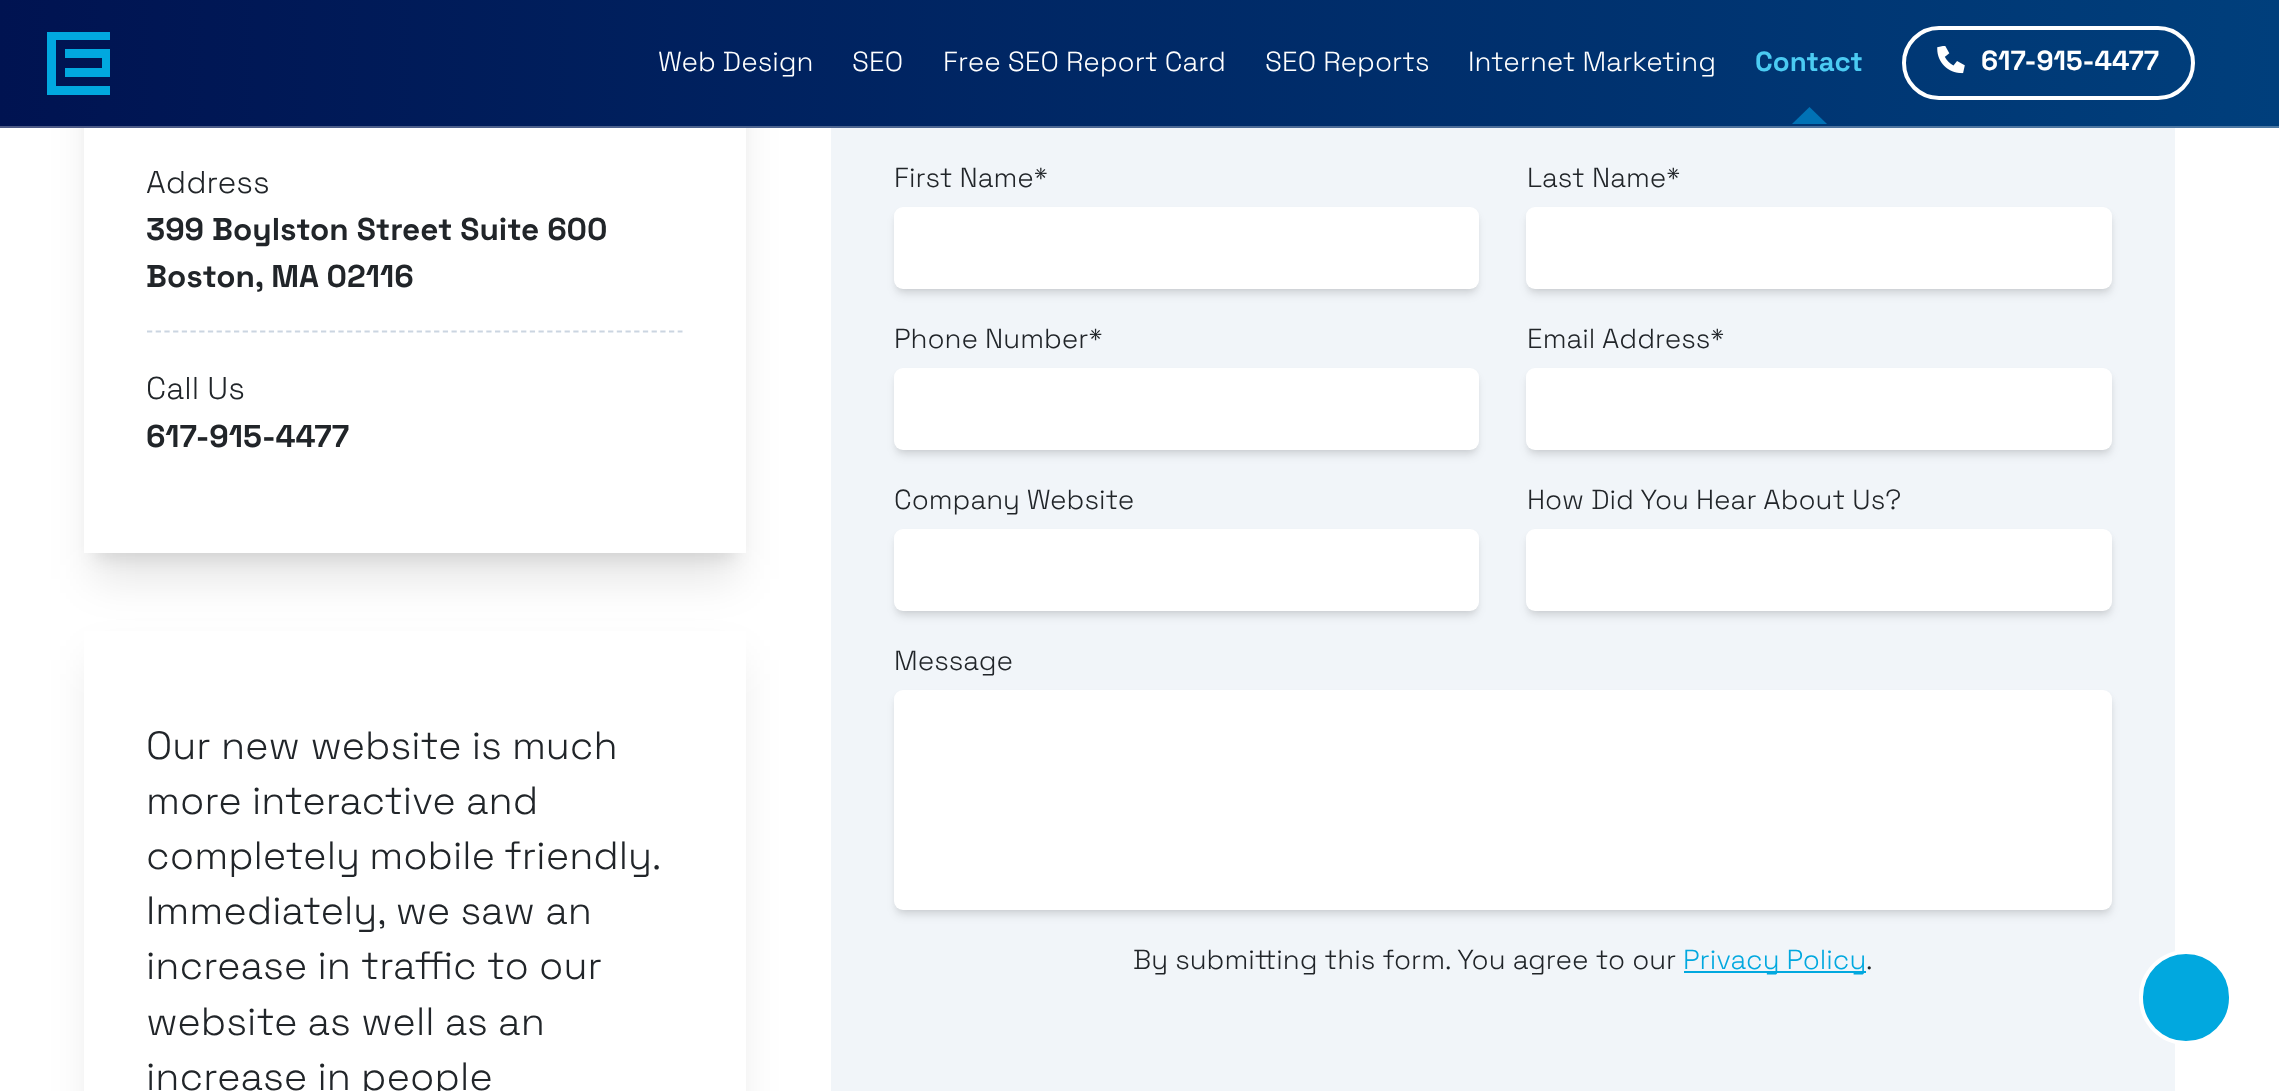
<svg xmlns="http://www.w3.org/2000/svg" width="2279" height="1091">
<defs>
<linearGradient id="g1" gradientUnits="userSpaceOnUse" x1="0" y1="63" x2="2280" y2="63"><stop offset="0" stop-color="#001351"/><stop offset="1" stop-color="#003f7c"/></linearGradient>
</defs>
<rect width="100%" height="100%" fill="#fff"/>
<rect x="95" y="-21" width="640" height="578" fill="#0000001a" filter="blur(9px)"/>
<rect x="93" y="-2" width="644" height="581" fill="#0000001a" filter="blur(22px)"/>
<rect width="2279" height="128" fill="url(#g1)"/>
<rect y="126" width="2279" height="2" fill="#ffffff4d"/>
<rect x="56" y="32" width="54" height="8" fill="#01a8df"/>
<rect x="56" y="86" width="54" height="9" fill="#01a8df"/>
<rect x="47" y="32" width="9" height="63" fill="#01a8df"/>
<rect x="65" y="49" width="37" height="9" fill="#01a8df"/>
<rect x="102" y="49" width="8" height="19" fill="#01a8df"/>
<rect x="65" y="68" width="45" height="9" fill="#01a8df"/>
<text x="658" y="71" style="font-family:Space Grotesk;font-size:27.6px;font-weight:300;fill:#fff">Web Design</text>
<text x="852" y="71" style="font-family:Space Grotesk;font-size:27.6px;font-weight:300;fill:#fff">SEO</text>
<text x="943" y="71" style="font-family:Space Grotesk;font-size:27.6px;font-weight:300;fill:#fff">Free SEO Report Card</text>
<text x="1265" y="71" style="font-family:Space Grotesk;font-size:27.6px;font-weight:300;fill:#fff">SEO Reports</text>
<text x="1468" y="71" style="font-family:Space Grotesk;font-size:27.6px;font-weight:300;fill:#fff">Internet Marketing</text>
<text x="1755" y="71" style="font-family:Space Grotesk;font-size:27.6px;font-weight:bold;fill:#4bcbf2">Contact</text>
<path d="M1827 124h-35l17.5-17z" fill="#0172b5"/>
<rect x="1904" y="28" width="289" height="70" rx="35" fill="none" stroke="#fff" stroke-width="4"/>
<image x="1937" y="46" width="28" height="28" href="media/1.png"/>
<text x="1981" y="70" style="font-family:Space Grotesk;font-size:27.6px;font-weight:bold;fill:#fff">617-915-4477</text>
<rect x="84" y="128" width="662" height="425" fill="#fff"/>
<text x="146" y="193" style="font-family:Space Grotesk;font-size:31.5px;font-weight:300;fill:#212529">Address</text>
<text x="146" y="240" style="font-family:Space Grotesk;font-size:31.5px;font-weight:bold;fill:#212529">399 Boylston Street Suite 600</text>
<text x="146" y="287" style="font-family:Space Grotesk;font-size:31.5px;font-weight:bold;fill:#212529">Boston, MA 02116</text>
<path d="M147 331.5h535.5" fill="none" stroke="#cbd5e1" stroke-width="1.8" stroke-dasharray="5.25 3.45"/>
<text x="146" y="399" style="font-family:Space Grotesk;font-size:31.5px;font-weight:300;fill:#212529">Call Us</text>
<text x="146" y="447" style="font-family:Space Grotesk;font-size:31.5px;font-weight:bold;fill:#212529">617-915-4477</text>
<rect x="93" y="660" width="644" height="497" fill="#0000001a" filter="blur(22px)"/>
<rect x="84" y="631" width="662" height="460" fill="#fff"/>
<text x="146" y="759" style="font-family:Space Grotesk;font-size:39.4px;font-weight:300;fill:#212529">Our new website is much</text>
<text x="146" y="814" style="font-family:Space Grotesk;font-size:39.4px;font-weight:300;fill:#212529">more interactive and</text>
<text x="146" y="869" word-spacing="-1" style="font-family:Space Grotesk;font-size:39.4px;font-weight:300;fill:#212529">completely mobile friendly.</text>
<text x="146" y="924" style="font-family:Space Grotesk;font-size:39.4px;font-weight:300;fill:#212529">Immediately, we saw an</text>
<text x="146" y="979" style="font-family:Space Grotesk;font-size:39.4px;font-weight:300;fill:#212529">increase in traffic to our</text>
<text x="146" y="1035" style="font-family:Space Grotesk;font-size:39.4px;font-weight:300;fill:#212529">website as well as an</text>
<text x="146" y="1090" style="font-family:Space Grotesk;font-size:39.4px;font-weight:300;fill:#212529">increase in people</text>
<rect x="831" y="128" width="1344" height="963" fill="#f1f5f9"/>
<text x="894" y="187" style="font-family:Space Grotesk;font-size:27.6px;font-weight:300;fill:#212529">First Name*</text>
<rect x="898" y="214" width="577" height="75" rx="4" fill="#0000001a" filter="blur(3.5px)"/>
<rect x="896" y="215" width="581" height="79" rx="7" fill="#0000001a" filter="blur(5px)"/>
<rect x="894" y="207" width="585" height="82" rx="9" fill="#fff"/>
<text x="1527" y="187" style="font-family:Space Grotesk;font-size:27.6px;font-weight:300;fill:#212529">Last Name*</text>
<rect x="1530" y="214" width="579" height="75" rx="4" fill="#0000001a" filter="blur(3.5px)"/>
<rect x="1528" y="215" width="583" height="79" rx="7" fill="#0000001a" filter="blur(5px)"/>
<rect x="1526" y="207" width="586" height="82" rx="9" fill="#fff"/>
<text x="894" y="348" style="font-family:Space Grotesk;font-size:27.6px;font-weight:300;fill:#212529">Phone Number*</text>
<rect x="898" y="375" width="577" height="75" rx="4" fill="#0000001a" filter="blur(3.5px)"/>
<rect x="896" y="376" width="581" height="79" rx="7" fill="#0000001a" filter="blur(5px)"/>
<rect x="894" y="368" width="585" height="82" rx="9" fill="#fff"/>
<text x="1527" y="348" style="font-family:Space Grotesk;font-size:27.6px;font-weight:300;fill:#212529">Email Address*</text>
<rect x="1530" y="375" width="579" height="75" rx="4" fill="#0000001a" filter="blur(3.5px)"/>
<rect x="1528" y="376" width="583" height="79" rx="7" fill="#0000001a" filter="blur(5px)"/>
<rect x="1526" y="368" width="586" height="82" rx="9" fill="#fff"/>
<text x="894" y="509" style="font-family:Space Grotesk;font-size:27.6px;font-weight:300;fill:#212529">Company Website</text>
<rect x="898" y="536" width="577" height="75" rx="4" fill="#0000001a" filter="blur(3.5px)"/>
<rect x="896" y="537" width="581" height="79" rx="7" fill="#0000001a" filter="blur(5px)"/>
<rect x="894" y="529" width="585" height="82" rx="9" fill="#fff"/>
<text x="1527" y="509" style="font-family:Space Grotesk;font-size:27.6px;font-weight:300;fill:#212529">How Did You Hear About Us?</text>
<rect x="1530" y="536" width="579" height="75" rx="4" fill="#0000001a" filter="blur(3.5px)"/>
<rect x="1528" y="537" width="583" height="79" rx="7" fill="#0000001a" filter="blur(5px)"/>
<rect x="1526" y="529" width="586" height="82" rx="9" fill="#fff"/>
<text x="894" y="670" style="font-family:Space Grotesk;font-size:27.6px;font-weight:300;fill:#212529">Message</text>
<rect x="898" y="697" width="1211" height="213" rx="4" fill="#0000001a" filter="blur(3.5px)"/>
<rect x="896" y="698" width="1215" height="217" rx="7" fill="#0000001a" filter="blur(5px)"/>
<rect x="894" y="690" width="1218" height="220" rx="9" fill="#fff"/>
<text x="1133" y="969" style="font-family:Space Grotesk;font-size:27.6px;font-weight:300;fill:#212529">By submitting this form. You agree to our</text>
<rect x="1684" y="971" width="182" height="2" fill="#01a8df"/>
<text x="1683" y="969" style="font-family:Space Grotesk;font-size:27.6px;font-weight:300;fill:#01a8df">Privacy Policy</text>
<text x="1866" y="969" style="font-family:Space Grotesk;font-size:27.6px;font-weight:300;fill:#212529">.</text>
<rect x="2141" y="952" width="90" height="91" rx="45" fill="#01a8df" stroke="#fff" stroke-width="4"/>
</svg>
